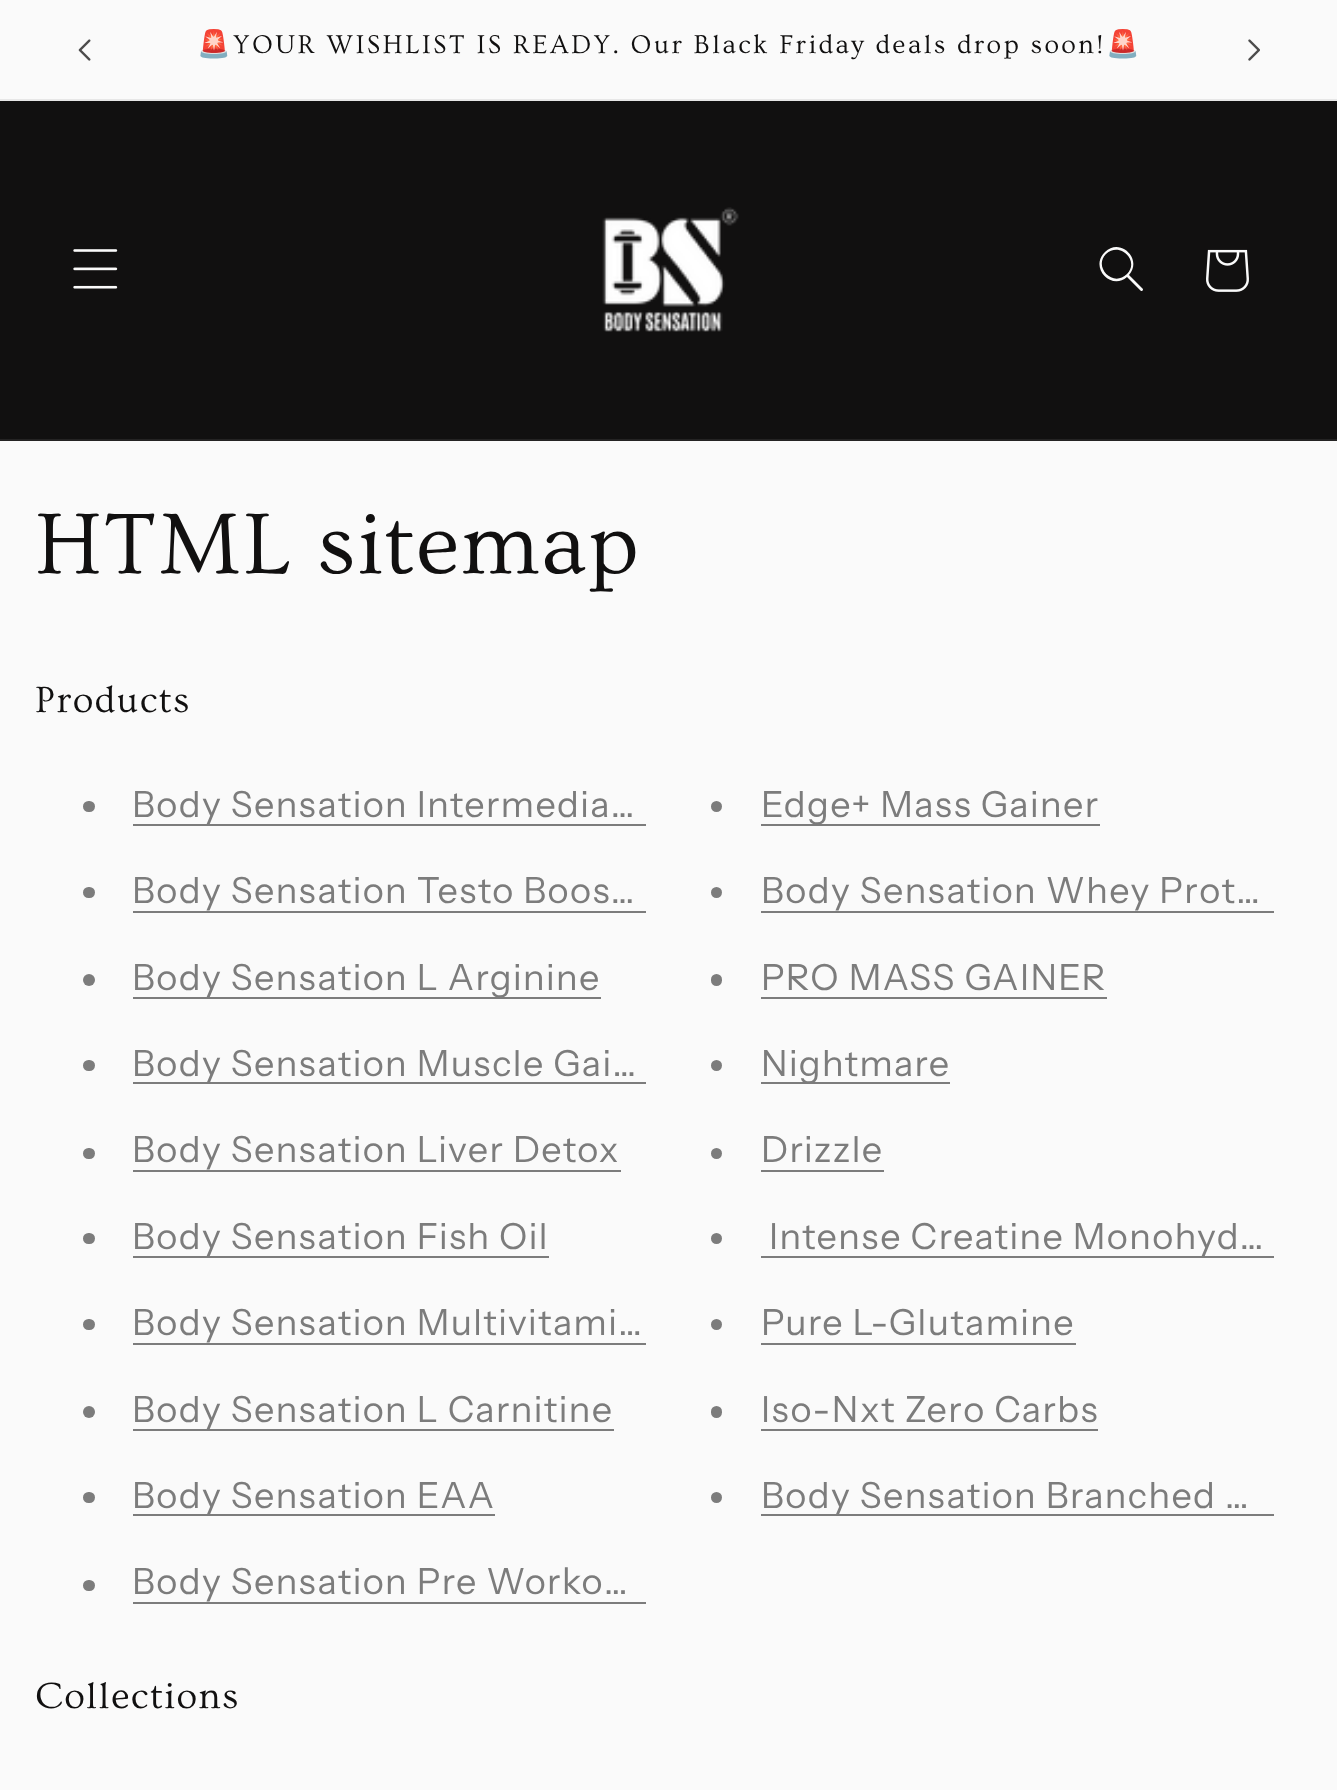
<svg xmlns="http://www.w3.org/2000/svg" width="1337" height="1790">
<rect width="100%" height="100%" fill="#fafafa"/>
<rect y="99" width="1337" height="2" fill="#e7e7e7"/>
<image x="78" y="39" width="13" height="22" href="media/1.png"/>
<text x="197" y="53" style="font-family:Noto Color Emoji;font-size:27px;letter-spacing:2.35px;fill:#111010">🚨</text>
<text x="233" y="53" style="font-family:Ovo;font-size:27px;letter-spacing:2.35px;fill:#111010">YOUR WISHLIST IS READY. Our Black Friday deals drop soon!</text>
<text x="1106" y="53" style="font-family:Noto Color Emoji;font-size:27px;letter-spacing:2.35px;fill:#111010">🚨</text>
<image x="1248" y="39" width="12" height="22" href="media/2.png"/>
<rect y="101" width="1337" height="338" fill="#111010"/>
<rect y="439" width="1337" height="2" fill="#242323"/>
<image x="73" y="249" width="45" height="40" href="media/3.png"/>
<image x="602" y="207" width="137" height="125" href="media/4.png"/>
<path d="M1127 274c-14 14-34-7-21-20c14-13 34 7 21 20m0 3c-16 14-38-10-22-25c15-15 38 7 24 23l14 14c0 2-1 2-2 2z" fill="#fafafa" fill-rule="evenodd"/>
<image x="1206" y="249" width="43" height="43" href="media/5.png"/>
<text x="35" y="573" style="font-family:Ovo;font-size:90px;letter-spacing:1.4px;fill:#111010">HTML sitemap</text>
<text x="35" y="712" style="font-family:Ovo;font-size:38.25px;letter-spacing:1.4px;fill:#111010">Products</text>
<rect x="83" y="801" width="12" height="11" rx="5.5" fill="#7c7c7c"/>
<rect x="133" y="824" width="513" height="2" fill="#7c7c7c"/>
<text x="132" y="817" style="font-family:Instrument Sans;font-size:36px;letter-spacing:1.4px;fill:#7c7c7c">Body Sensation Intermedia…</text>
<circle cx="716.5" cy="806.5" r="5.5" fill="#7c7c7c"/>
<rect x="761" y="824" width="339" height="2" fill="#7c7c7c"/>
<text x="761" y="817" style="font-family:Instrument Sans;font-size:36px;letter-spacing:1.4px;fill:#7c7c7c">Edge+ Mass Gainer</text>
<rect x="83" y="887" width="12" height="11" rx="5.5" fill="#7c7c7c"/>
<text x="132" y="903" style="font-family:Instrument Sans;font-size:36px;letter-spacing:1.4px;fill:#7c7c7c">Body Sensation Testo Boos…</text>
<rect x="133" y="911" width="513" height="2" fill="#7c7c7c"/>
<circle cx="716.5" cy="892.5" r="5.5" fill="#7c7c7c"/>
<text x="761" y="903" style="font-family:Instrument Sans;font-size:36px;letter-spacing:1.4px;fill:#7c7c7c">Body Sensation Whey Prot…</text>
<rect x="761" y="911" width="513" height="2" fill="#7c7c7c"/>
<circle cx="89" cy="980" r="6" fill="#7c7c7c"/>
<rect x="133" y="997" width="468" height="2" fill="#7c7c7c"/>
<text x="132" y="990" style="font-family:Instrument Sans;font-size:36px;letter-spacing:1.4px;fill:#7c7c7c">Body Sensation L Arginine</text>
<rect x="711" y="974" width="11" height="12" rx="5.5" fill="#7c7c7c"/>
<text x="761" y="990" style="font-family:Instrument Sans;font-size:36px;letter-spacing:1.4px;fill:#7c7c7c">PRO MASS GAINER</text>
<rect x="761" y="997" width="346" height="2" fill="#7c7c7c"/>
<rect x="83" y="1060" width="12" height="11" rx="5.5" fill="#7c7c7c"/>
<rect x="133" y="1082" width="513" height="2" fill="#7c7c7c"/>
<text x="132" y="1076" style="font-family:Instrument Sans;font-size:36px;letter-spacing:1.4px;fill:#7c7c7c">Body Sensation Muscle Gai…</text>
<circle cx="716.5" cy="1065.5" r="5.5" fill="#7c7c7c"/>
<rect x="761" y="1082" width="189" height="2" fill="#7c7c7c"/>
<text x="761" y="1076" style="font-family:Instrument Sans;font-size:36px;letter-spacing:1.4px;fill:#7c7c7c">Nightmare</text>
<rect x="83" y="1148" width="12" height="11" rx="5.5" fill="#7c7c7c"/>
<text x="132" y="1162" style="font-family:Instrument Sans;font-size:36px;letter-spacing:1.4px;fill:#7c7c7c">Body Sensation Liver Detox</text>
<rect x="133" y="1170" width="488" height="2" fill="#7c7c7c"/>
<circle cx="716.5" cy="1153.5" r="5.5" fill="#7c7c7c"/>
<text x="761" y="1162" style="font-family:Instrument Sans;font-size:36px;letter-spacing:1.4px;fill:#7c7c7c">Drizzle</text>
<rect x="761" y="1170" width="123" height="2" fill="#7c7c7c"/>
<rect x="83" y="1233" width="12" height="11" rx="5.5" fill="#7c7c7c"/>
<rect x="133" y="1256" width="416" height="2" fill="#7c7c7c"/>
<text x="132" y="1249" style="font-family:Instrument Sans;font-size:36px;letter-spacing:1.4px;fill:#7c7c7c">Body Sensation Fish Oil</text>
<circle cx="716.5" cy="1238.5" r="5.5" fill="#7c7c7c"/>
<rect x="761" y="1256" width="513" height="2" fill="#7c7c7c"/>
<text x="769" y="1249" style="font-family:Instrument Sans;font-size:36px;letter-spacing:1.4px;fill:#7c7c7c">Intense Creatine Monohyd…</text>
<rect x="83" y="1319" width="12" height="11" rx="5.5" fill="#7c7c7c"/>
<text x="132" y="1335" style="font-family:Instrument Sans;font-size:36px;letter-spacing:1.4px;fill:#7c7c7c">Body Sensation Multivitami…</text>
<rect x="133" y="1343" width="513" height="2" fill="#7c7c7c"/>
<circle cx="716.5" cy="1324.5" r="5.5" fill="#7c7c7c"/>
<text x="761" y="1335" style="font-family:Instrument Sans;font-size:36px;letter-spacing:1.4px;fill:#7c7c7c">Pure L-Glutamine</text>
<rect x="761" y="1343" width="315" height="2" fill="#7c7c7c"/>
<circle cx="89" cy="1412" r="6" fill="#7c7c7c"/>
<rect x="133" y="1429" width="481" height="2" fill="#7c7c7c"/>
<text x="132" y="1422" style="font-family:Instrument Sans;font-size:36px;letter-spacing:1.4px;fill:#7c7c7c">Body Sensation L Carnitine</text>
<rect x="711" y="1406" width="11" height="12" rx="5.5" fill="#7c7c7c"/>
<text x="761" y="1422" style="font-family:Instrument Sans;font-size:36px;letter-spacing:1.4px;fill:#7c7c7c">Iso-Nxt Zero Carbs</text>
<rect x="761" y="1429" width="337" height="2" fill="#7c7c7c"/>
<rect x="83" y="1492" width="12" height="11" rx="5.5" fill="#7c7c7c"/>
<rect x="133" y="1514" width="362" height="2" fill="#7c7c7c"/>
<text x="132" y="1508" style="font-family:Instrument Sans;font-size:36px;letter-spacing:1.4px;fill:#7c7c7c">Body Sensation EAA</text>
<circle cx="716.5" cy="1497.5" r="5.5" fill="#7c7c7c"/>
<rect x="761" y="1514" width="513" height="2" fill="#7c7c7c"/>
<text x="761" y="1508" style="font-family:Instrument Sans;font-size:36px;letter-spacing:1.4px;fill:#7c7c7c">Body Sensation Branched …</text>
<rect x="83" y="1580" width="12" height="11" rx="5.5" fill="#7c7c7c"/>
<text x="132" y="1594" style="font-family:Instrument Sans;font-size:36px;letter-spacing:1.4px;fill:#7c7c7c">Body Sensation Pre Worko…</text>
<rect x="133" y="1602" width="513" height="2" fill="#7c7c7c"/>
<text x="35" y="1708" style="font-family:Ovo;font-size:38.25px;letter-spacing:1.4px;fill:#111010">Collections</text>
</svg>
